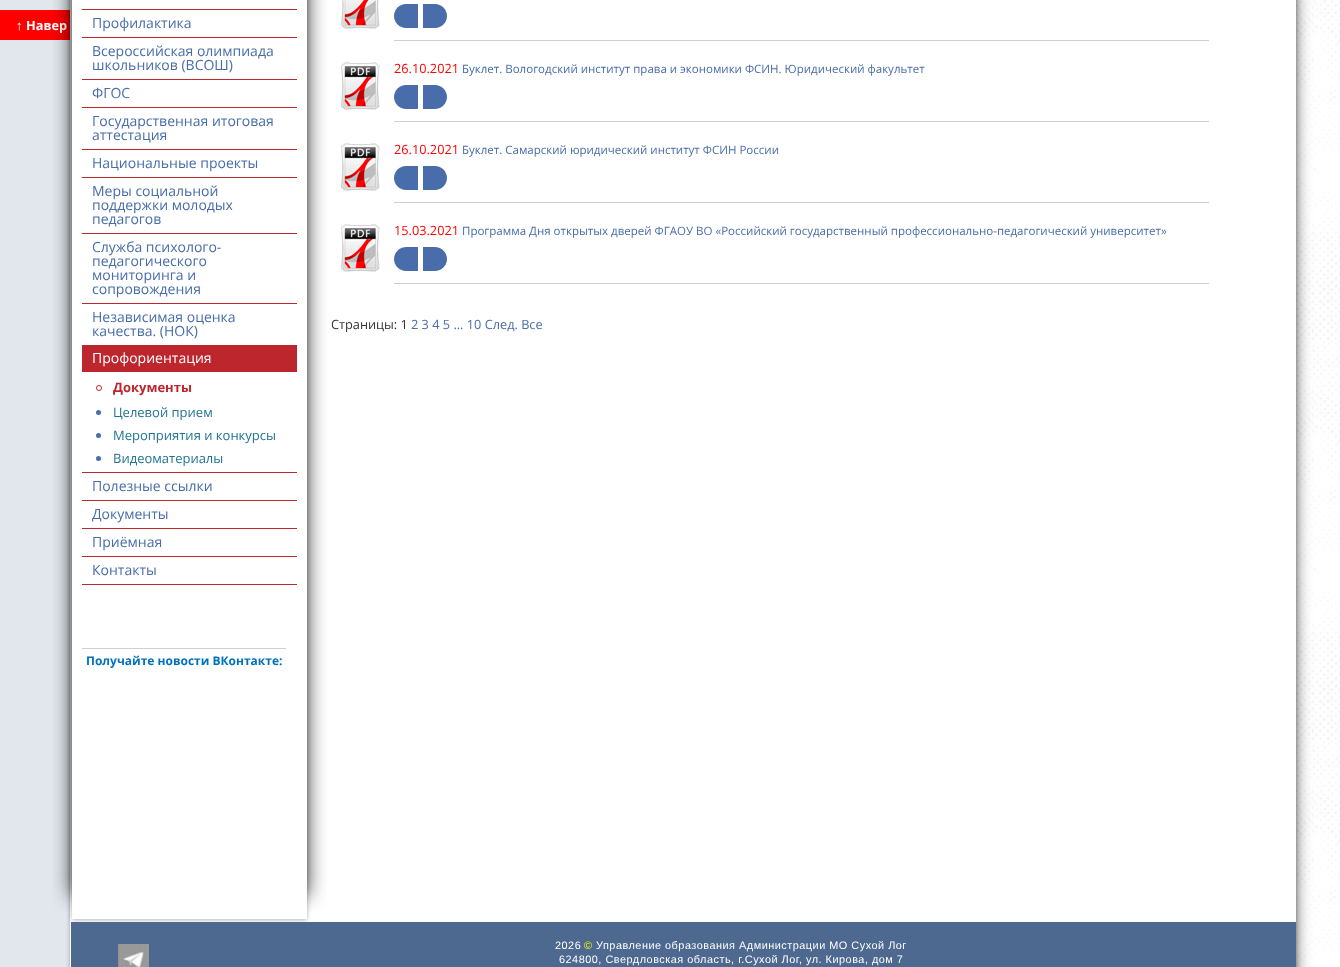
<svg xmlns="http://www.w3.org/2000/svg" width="1340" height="967">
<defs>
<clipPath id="clip1"><rect x="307" y="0" width="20" height="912"/></clipPath>
<clipPath id="clip2"><rect x="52" y="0" width="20" height="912"/></clipPath>
<clipPath id="clip3"><path d="M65 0h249v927h-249zm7-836h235v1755h-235z" clip-rule="evenodd"/></clipPath>
</defs>
<rect width="100%" height="100%" fill="#fff"/>
<image x="1296" y="0" width="44" height="967" href="media/1.png"/>
<rect x="70" y="-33" width="1226" height="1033" rx="10" fill="#00000099" filter="blur(7.5px)"/>
<rect width="70" height="967" fill="#e1e7ed"/>
<rect y="10" width="70" height="30" fill="#f00"/>
<text x="16" y="30" style="font-family:Liberation Sans;font-size:12.75px;font-weight:bold;fill:#fff">↑</text>
<text x="26" y="30" style="font-family:Open Sans;font-size:12.75px;font-weight:bold;fill:#fff">Навер</text>
<rect x="70" y="-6" width="1226" height="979" fill="#0000004d" filter="blur(2px)"/>
<rect x="70" width="1226" height="967" fill="#fff"/>
<g clip-path="url(#clip1)">
<rect x="118" y="-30" width="189" height="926" fill="#000000cc" filter="blur(10px)"/>
</g>
<g clip-path="url(#clip2)">
<rect x="72" y="-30" width="189" height="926" fill="#000000cc" filter="blur(10px)"/>
</g>
<g clip-path="url(#clip3)">
<rect x="72" y="-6" width="235" height="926" fill="#0000004d" filter="blur(2px)"/>
</g>
<rect x="82" y="9" width="215" height="1" fill="#bc262c"/>
<text x="92" y="28" style="font-family:Open Sans;font-size:14px;fill:#486daa">Профилактика</text>
<rect x="82" y="37" width="215" height="1" fill="#bc262c"/>
<text x="92" y="56" style="font-family:Open Sans;font-size:14px;fill:#486daa">Всероссийская олимпиада</text>
<text x="92" y="70" style="font-family:Open Sans;font-size:14px;fill:#486daa">школьников (ВСОШ)</text>
<rect x="82" y="79" width="215" height="1" fill="#bc262c"/>
<text x="92" y="98" style="font-family:Open Sans;font-size:14px;fill:#486daa">ФГОС</text>
<rect x="82" y="107" width="215" height="1" fill="#bc262c"/>
<text x="92" y="126" style="font-family:Open Sans;font-size:14px;fill:#486daa">Государственная итоговая</text>
<text x="92" y="140" style="font-family:Open Sans;font-size:14px;fill:#486daa">аттестация</text>
<rect x="82" y="149" width="215" height="1" fill="#bc262c"/>
<text x="92" y="168" style="font-family:Open Sans;font-size:14px;fill:#486daa">Национальные проекты</text>
<rect x="82" y="177" width="215" height="1" fill="#bc262c"/>
<text x="92" y="196" style="font-family:Open Sans;font-size:14px;fill:#486daa">Меры социальной</text>
<text x="92" y="210" style="font-family:Open Sans;font-size:14px;fill:#486daa">поддержки молодых</text>
<text x="92" y="224" style="font-family:Open Sans;font-size:14px;fill:#486daa">педагогов</text>
<rect x="82" y="233" width="215" height="1" fill="#bc262c"/>
<text x="92" y="252" style="font-family:Open Sans;font-size:14px;fill:#486daa">Служба психолого-</text>
<text x="92" y="266" style="font-family:Open Sans;font-size:14px;fill:#486daa">педагогического</text>
<text x="92" y="280" style="font-family:Open Sans;font-size:14px;fill:#486daa">мониторинга и</text>
<text x="92" y="294" style="font-family:Open Sans;font-size:14px;fill:#486daa">сопровождения</text>
<rect x="82" y="303" width="215" height="1" fill="#bc262c"/>
<text x="92" y="322" style="font-family:Open Sans;font-size:14px;fill:#486daa">Независимая оценка</text>
<text x="92" y="336" style="font-family:Open Sans;font-size:14px;fill:#486daa">качества. (НОК)</text>
<rect x="82" y="345" width="215" height="27" fill="#bc262c"/>
<text x="92" y="363" style="font-family:Open Sans;font-size:14px;fill:#fff">Профориентация</text>
<circle cx="99" cy="388" r="2.5" fill="none" stroke="#bc262c"/>
<text x="113" y="392" style="font-family:Open Sans;font-size:13px;font-weight:bold;fill:#bc262c">Документы</text>
<circle cx="98.5" cy="412.5" r="2.5" fill="#486daa"/>
<text x="113" y="417" style="font-family:Open Sans;font-size:13px;fill:#207492">Целевой прием</text>
<circle cx="98.5" cy="435.5" r="2.5" fill="#486daa"/>
<text x="113" y="440" style="font-family:Open Sans;font-size:13px;fill:#207492">Мероприятия и конкурсы</text>
<circle cx="98.5" cy="458.5" r="2.5" fill="#486daa"/>
<text x="113" y="463" style="font-family:Open Sans;font-size:13px;fill:#207492">Видеоматериалы</text>
<rect x="82" y="472" width="215" height="1" fill="#bc262c"/>
<text x="92" y="491" style="font-family:Open Sans;font-size:14px;fill:#486daa">Полезные ссылки</text>
<rect x="82" y="500" width="215" height="1" fill="#bc262c"/>
<text x="92" y="519" style="font-family:Open Sans;font-size:14px;fill:#486daa">Документы</text>
<rect x="82" y="528" width="215" height="1" fill="#bc262c"/>
<text x="92" y="547" style="font-family:Open Sans;font-size:14px;fill:#486daa">Приёмная</text>
<rect x="82" y="556" width="215" height="1" fill="#bc262c"/>
<text x="92" y="575" style="font-family:Open Sans;font-size:14px;fill:#486daa">Контакты</text>
<rect x="82" y="584" width="215" height="1" fill="#bc262c"/>
<rect x="82" y="648" width="204" height="1" fill="#d1d0d0"/>
<text x="86" y="665" style="font-family:Open Sans;font-size:12px;font-weight:bold;fill:#0072bc">Получайте новости ВКонтакте:</text>
<image x="341" y="0" width="39" height="29" href="media/2.png"/>
<path d="M406 4h12v24h-12c-6.5 0-12-5.5-12-12c0-6.5 5.5-12 12-12z" fill="#486daa"/>
<path d="M423 4h12c6.5 0 12 5.5 12 12c0 6.5-5.5 12-12 12h-12z" fill="#486daa"/>
<rect x="394" y="40" width="815" height="1" fill="#d1d0d0"/>
<image x="341" y="62" width="39" height="48" href="media/3.png"/>
<text x="394" y="73" style="font-family:Open Sans;font-size:12.75px;fill:#f00">26.10.2021</text>
<text x="462" y="73" style="font-family:Open Sans;font-size:11.52px;fill:#486daa">Буклет. Вологодский институт права и экономики ФСИН. Юридический факультет</text>
<path d="M406 85h12v24h-12c-6.5 0-12-5.5-12-12c0-6.5 5.5-12 12-12z" fill="#486daa"/>
<path d="M423 85h12c6.5 0 12 5.5 12 12c0 6.5-5.5 12-12 12h-12z" fill="#486daa"/>
<rect x="394" y="121" width="815" height="1" fill="#d1d0d0"/>
<image x="341" y="143" width="39" height="48" href="media/3.png"/>
<text x="394" y="154" style="font-family:Open Sans;font-size:12.75px;fill:#f00">26.10.2021</text>
<text x="462" y="154" style="font-family:Open Sans;font-size:11.52px;fill:#486daa">Буклет. Самарский юридический институт ФСИН России</text>
<path d="M406 166h12v24h-12c-6.5 0-12-5.5-12-12c0-6.5 5.5-12 12-12z" fill="#486daa"/>
<path d="M423 166h12c6.5 0 12 5.5 12 12c0 6.5-5.5 12-12 12h-12z" fill="#486daa"/>
<rect x="394" y="202" width="815" height="1" fill="#d1d0d0"/>
<image x="341" y="224" width="39" height="48" href="media/3.png"/>
<text x="394" y="235" style="font-family:Open Sans;font-size:12.75px;fill:#f00">15.03.2021</text>
<text x="462" y="235" style="font-family:Open Sans;font-size:11.52px;fill:#486daa">Программа Дня открытых дверей ФГАОУ ВО «Российский государственный профессионально-педагогический университет»</text>
<path d="M406 247h12v24h-12c-6.5 0-12-5.5-12-12c0-6.5 5.5-12 12-12z" fill="#486daa"/>
<path d="M423 247h12c6.5 0 12 5.5 12 12c0 6.5-5.5 12-12 12h-12z" fill="#486daa"/>
<rect x="394" y="283" width="815" height="1" fill="#d1d0d0"/>
<text x="331" y="329" style="font-family:Open Sans;font-size:12.75px;fill:#333">Страницы: 1</text>
<text x="411" y="329" style="font-family:Open Sans;font-size:12.75px;fill:#486daa">2 3 4 5 ... 10 След. Все</text>
<rect x="71" y="922" width="1225" height="45" fill="#4d6990"/>
<image x="118" y="944" width="31" height="23" href="media/4.png"/>
<text x="555" y="949" style="font-family:Liberation Sans;font-size:10.9px;letter-spacing:0.5px;fill:#fff">2026</text>
<text x="584" y="949" style="font-family:Liberation Sans;font-size:10.9px;letter-spacing:0.5px;fill:#ff0">©</text>
<text x="596" y="949" style="font-family:Liberation Sans;font-size:10.9px;letter-spacing:0.5px;fill:#fff">Управление образования Администрации МО Сухой Лог</text>
<text x="559" y="963" style="font-family:Liberation Sans;font-size:10.9px;letter-spacing:0.5px;fill:#fff">624800, Свердловская область, г.Сухой Лог, ул. Кирова, дом 7</text>
</svg>
